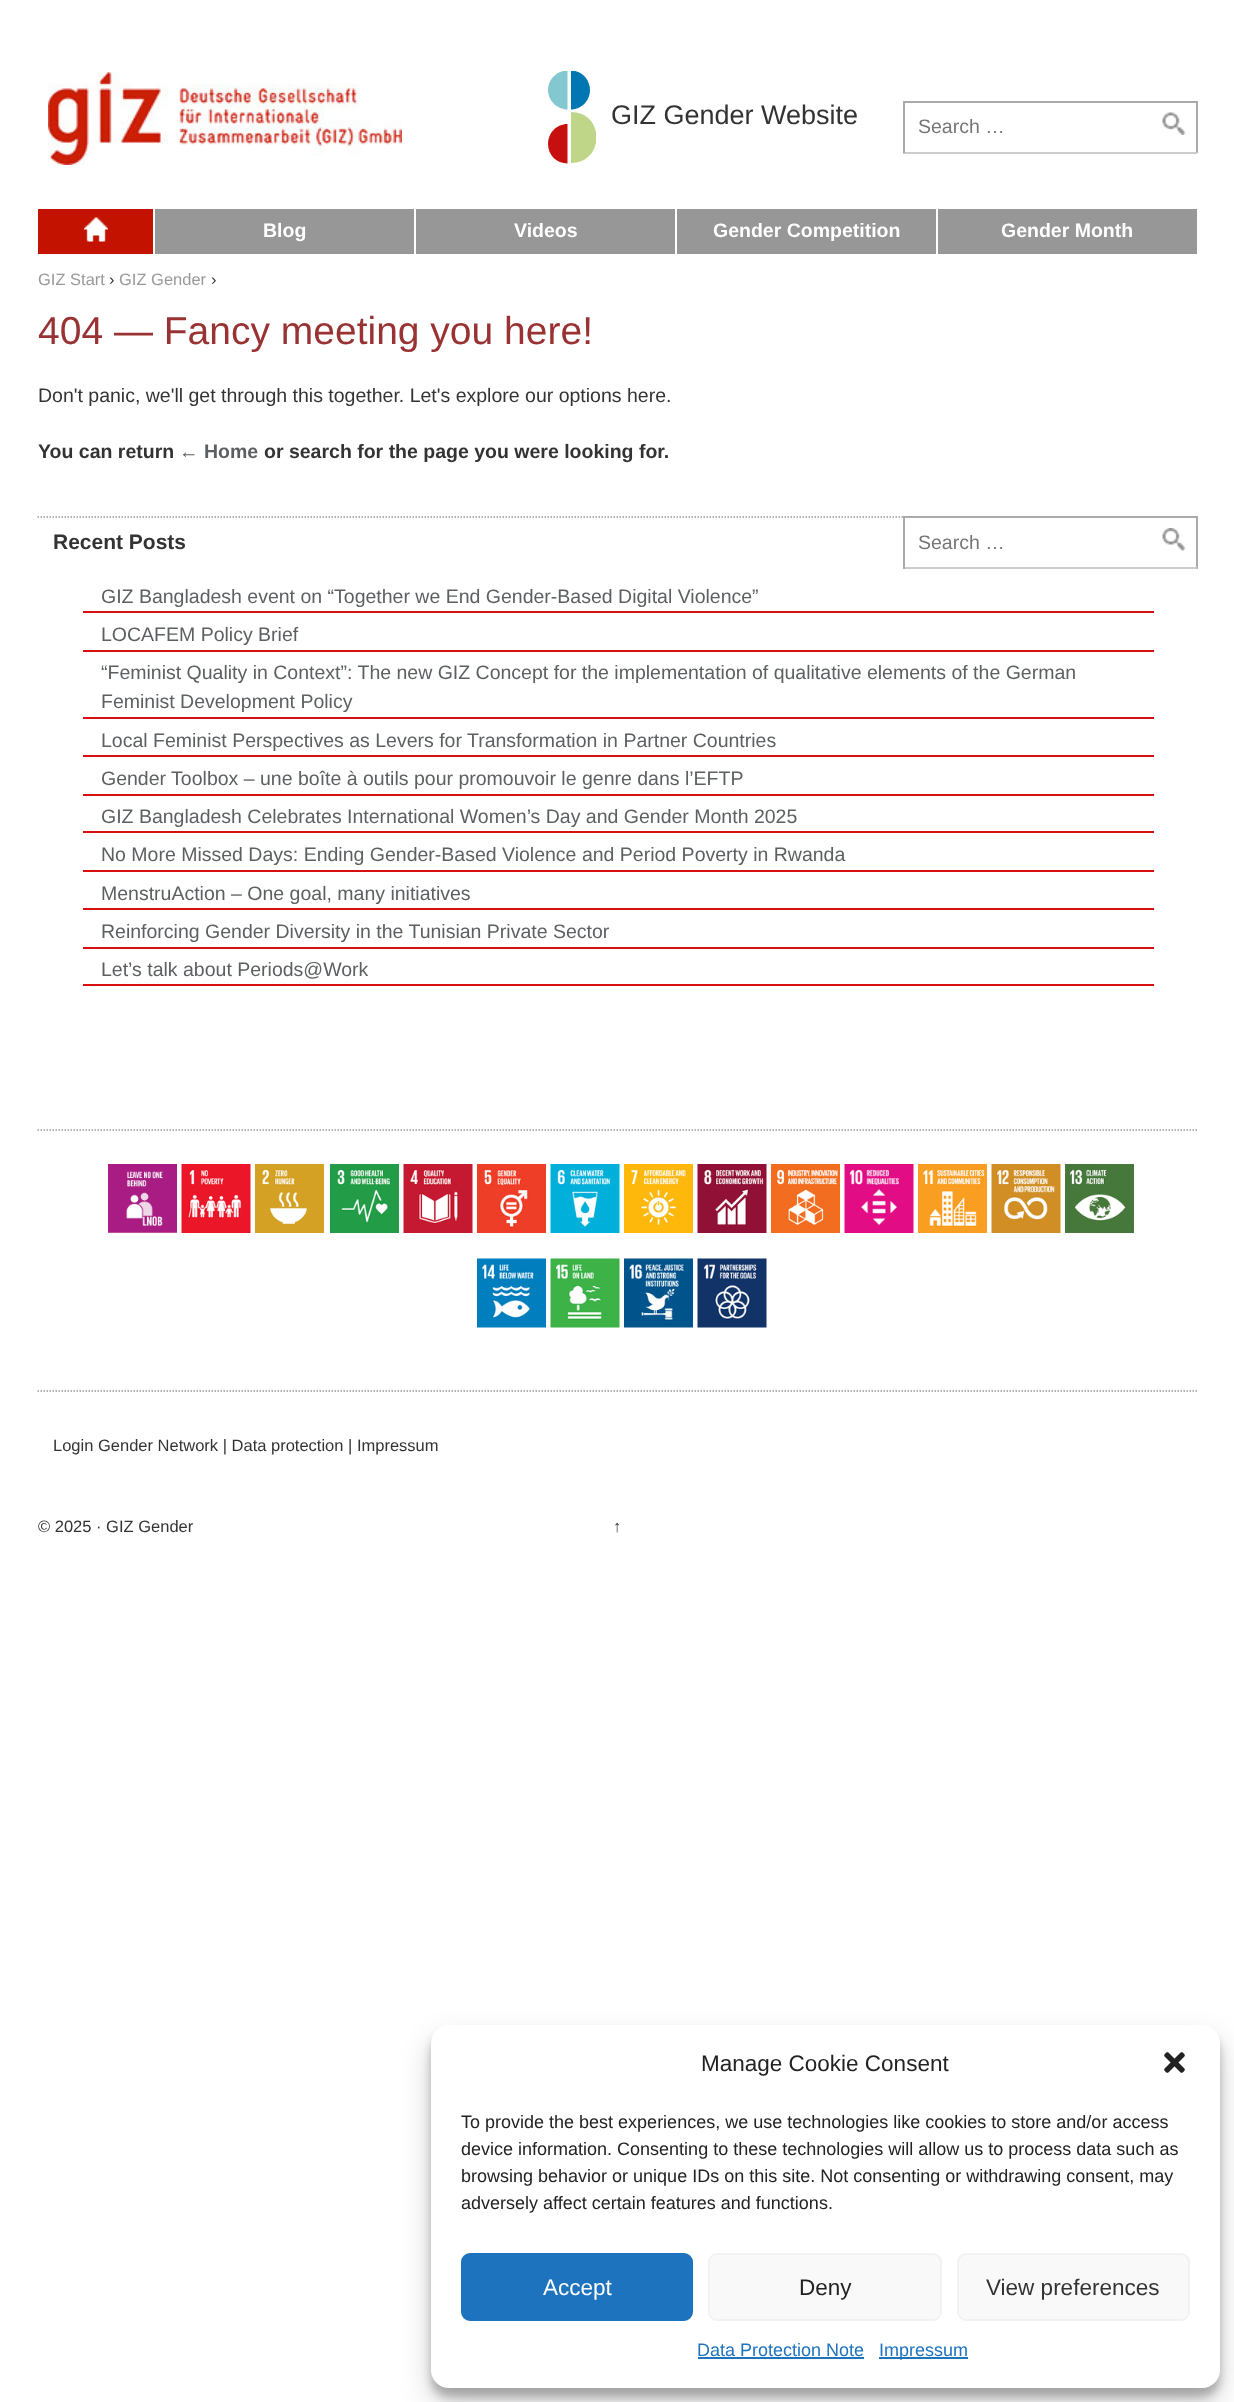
<svg xmlns="http://www.w3.org/2000/svg" width="1234" height="2402">
<defs>
<clipPath id="clip1"><rect x="548" y="71" width="48" height="93"/></clipPath>
</defs>
<rect width="100%" height="100%" fill="#fff"/>
<image x="48" y="72" width="354" height="93" href="media/1.png"/>
<text x="611" y="124" style="font-family:Liberation Sans;font-size:27px;fill:#333">GIZ Gender Website</text>
<g clip-path="url(#clip1)">
<path d="M571 109.5c10.5 0 19-9 19-19.5c0-10.5-8.5-19.5-19-19.5z" fill="#0077b2"/>
</g>
<path d="M567.5 124c-11 0-19.5 9-19.5 20c0 11 8.5 19.5 19.5 19.5z" fill="#c80f0f"/>
<g clip-path="url(#clip1)">
<path d="M571 163c34 0 34-51 0-51z" fill="#bfd688"/>
<path d="M567.5 109.5c-10.5 0-19.5-9-19.5-19.5c0-10.5 9-19.5 19.5-19.5z" fill="#83c8d1"/>
</g>
<image x="1162" y="112" width="24" height="23" href="media/2.png"/>
<rect x="903" y="101" width="294" height="2" fill="#aaa"/>
<rect x="1196" y="101" width="2" height="52" fill="#aaa"/>
<rect x="903" y="152" width="294" height="2" fill="#ccc"/>
<rect x="903" y="101" width="2" height="52" fill="#aaa"/>
<text x="918" y="133" style="font-family:Liberation Sans;font-size:19.5px;fill:#757575">Search …</text>
<rect x="38" y="209" width="115" height="45" fill="#c31300"/>
<image x="84" y="217" width="24" height="25" href="media/3.png"/>
<rect x="155" y="209" width="259" height="45" fill="#979797"/>
<text x="263" y="237" style="font-family:Liberation Sans;font-size:19.5px;font-weight:bold;fill:#fff">Blog</text>
<rect x="416" y="209" width="259" height="45" fill="#979797"/>
<text x="514" y="237" style="font-family:Liberation Sans;font-size:19.5px;font-weight:bold;fill:#fff">Videos</text>
<rect x="677" y="209" width="259" height="45" fill="#979797"/>
<text x="713" y="237" style="font-family:Liberation Sans;font-size:19.5px;font-weight:bold;fill:#fff">Gender Competition</text>
<rect x="938" y="209" width="259" height="45" fill="#979797"/>
<text x="1001" y="237" style="font-family:Liberation Sans;font-size:19.5px;font-weight:bold;fill:#fff">Gender Month</text>
<text x="38" y="285" style="font-family:Liberation Sans;font-size:16.5px;fill:#999">GIZ Start</text>
<text x="109" y="285" style="font-family:Liberation Sans;font-size:16.5px;fill:#333">›</text>
<text x="119" y="285" style="font-family:Liberation Sans;font-size:16.5px;fill:#999">GIZ Gender</text>
<text x="211" y="285" style="font-family:Liberation Sans;font-size:16.5px;fill:#333">›</text>
<text x="38" y="344" style="font-family:Liberation Sans;font-size:39px;fill:#933">404 — Fancy meeting you here!</text>
<text x="38" y="402" style="font-family:Liberation Sans;font-size:19.5px;fill:#333">Don't panic, we'll get through this together. Let's explore our options here.</text>
<text x="38" y="458" style="font-family:Liberation Sans;font-size:19.5px;font-weight:bold;fill:#333">You can return</text>
<text x="179" y="458" style="font-family:Liberation Sans;font-size:19.5px;font-weight:bold;fill:#5d6062">← Home</text>
<text x="264" y="458" style="font-family:Liberation Sans;font-size:19.5px;font-weight:bold;fill:#333">or search for the page you were looking for.</text>
<image x="1162" y="528" width="24" height="23" href="media/4.png"/>
<path d="M37.5 517h1159.5" fill="none" stroke="#999" stroke-width="1.5" stroke-dasharray="1.5 1.5"/>
<rect x="903" y="516" width="294" height="2" fill="#aaa"/>
<rect x="1196" y="516" width="2" height="53" fill="#aaa"/>
<rect x="903" y="567" width="294" height="2" fill="#ccc"/>
<rect x="903" y="516" width="2" height="53" fill="#aaa"/>
<text x="918" y="549" style="font-family:Liberation Sans;font-size:19.5px;fill:#757575">Search …</text>
<text x="53" y="549" style="font-family:Liberation Sans;font-size:21px;font-weight:bold;fill:#333">Recent Posts</text>
<rect x="83" y="611" width="1071" height="2" fill="#d70f0f"/>
<text x="101" y="603" style="font-family:Liberation Sans;font-size:19.5px;fill:#5d6062">GIZ Bangladesh event on “Together we End Gender-Based Digital Violence”</text>
<rect x="83" y="650" width="1071" height="2" fill="#d70f0f"/>
<text x="101" y="641" style="font-family:Liberation Sans;font-size:19.5px;fill:#5d6062">LOCAFEM Policy Brief</text>
<rect x="83" y="717" width="1071" height="2" fill="#d70f0f"/>
<text x="101" y="679" style="font-family:Liberation Sans;font-size:19.5px;fill:#5d6062">“Feminist Quality in Context”: The new GIZ Concept for the implementation of qualitative elements of the German</text>
<text x="101" y="708" style="font-family:Liberation Sans;font-size:19.5px;fill:#5d6062">Feminist Development Policy</text>
<rect x="83" y="755" width="1071" height="2" fill="#d70f0f"/>
<text x="101" y="747" style="font-family:Liberation Sans;font-size:19.5px;fill:#5d6062">Local Feminist Perspectives as Levers for Transformation in Partner Countries</text>
<rect x="83" y="794" width="1071" height="2" fill="#d70f0f"/>
<text x="101" y="785" style="font-family:Liberation Sans;font-size:19.5px;fill:#5d6062">Gender Toolbox – une boîte à outils pour promouvoir le genre dans l’EFTP</text>
<rect x="83" y="831" width="1071" height="2" fill="#d70f0f"/>
<text x="101" y="823" style="font-family:Liberation Sans;font-size:19.5px;fill:#5d6062">GIZ Bangladesh Celebrates International Women’s Day and Gender Month 2025</text>
<rect x="83" y="870" width="1071" height="2" fill="#d70f0f"/>
<text x="101" y="861" style="font-family:Liberation Sans;font-size:19.5px;fill:#5d6062">No More Missed Days: Ending Gender-Based Violence and Period Poverty in Rwanda</text>
<rect x="83" y="908" width="1071" height="2" fill="#d70f0f"/>
<text x="101" y="900" style="font-family:Liberation Sans;font-size:19.5px;fill:#5d6062">MenstruAction – One goal, many initiatives</text>
<rect x="83" y="947" width="1071" height="2" fill="#d70f0f"/>
<text x="101" y="938" style="font-family:Liberation Sans;font-size:19.5px;fill:#5d6062">Reinforcing Gender Diversity in the Tunisian Private Sector</text>
<rect x="83" y="984" width="1071" height="2" fill="#d70f0f"/>
<text x="101" y="976" style="font-family:Liberation Sans;font-size:19.5px;fill:#5d6062">Let’s talk about Periods@Work</text>
<path d="M37.5 1130h1159.5" fill="none" stroke="#999" stroke-width="1.5" stroke-dasharray="1.5 1.5"/>
<image x="108" y="1164" width="69" height="69" href="media/5.png"/>
<image x="181" y="1164" width="70" height="69" href="media/6.png"/>
<image x="255" y="1164" width="69" height="69" href="media/7.png"/>
<image x="330" y="1164" width="69" height="69" href="media/8.png"/>
<image x="403" y="1164" width="70" height="69" href="media/9.png"/>
<image x="477" y="1164" width="69" height="69" href="media/10.png"/>
<image x="550" y="1164" width="70" height="69" href="media/11.png"/>
<image x="624" y="1164" width="69" height="69" href="media/12.png"/>
<image x="697" y="1164" width="70" height="69" href="media/13.png"/>
<image x="771" y="1164" width="69" height="69" href="media/14.png"/>
<image x="844" y="1164" width="70" height="69" href="media/15.png"/>
<image x="918" y="1164" width="69" height="69" href="media/16.png"/>
<image x="991" y="1164" width="70" height="69" href="media/17.png"/>
<image x="1065" y="1164" width="69" height="69" href="media/18.png"/>
<image x="477" y="1258" width="69" height="70" href="media/19.png"/>
<image x="550" y="1258" width="70" height="70" href="media/20.png"/>
<image x="624" y="1258" width="69" height="70" href="media/21.png"/>
<image x="697" y="1258" width="70" height="70" href="media/22.png"/>
<path d="M37.5 1391h1159.5" fill="none" stroke="#999" stroke-width="1.5" stroke-dasharray="1.5 1.5"/>
<text x="53" y="1451" style="font-family:Liberation Sans;font-size:16.5px;fill:#333">Login Gender Network | Data protection | Impressum</text>
<text x="38" y="1532" style="font-family:Liberation Sans;font-size:16.5px;fill:#333">© 2025 · GIZ Gender</text>
<text x="613" y="1532" style="font-family:Liberation Sans;font-size:16.5px;fill:#333">↑</text>
<rect x="431" y="2034" width="789" height="363" rx="18" fill="#0000003b" filter="blur(4.5px)"/>
<rect x="431" y="2040" width="789" height="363" rx="18" fill="#00000030" filter="blur(15px)"/>
<rect x="431" y="2025" width="789" height="363" rx="18" fill="#fff"/>
<text x="701" y="2071" style="font-family:Liberation Sans;font-size:22.5px;fill:#222">Manage Cookie Consent</text>
<image x="1164" y="2052" width="21" height="21" href="media/23.png"/>
<text x="461" y="2128" style="font-family:Liberation Sans;font-size:18px;fill:#222">To provide the best experiences, we use technologies like cookies to store and/or access</text>
<text x="461" y="2155" style="font-family:Liberation Sans;font-size:18px;fill:#222">device information. Consenting to these technologies will allow us to process data such as</text>
<text x="461" y="2182" style="font-family:Liberation Sans;font-size:18px;fill:#222">browsing behavior or unique IDs on this site. Not consenting or withdrawing consent, may</text>
<text x="461" y="2209" style="font-family:Liberation Sans;font-size:18px;fill:#222">adversely affect certain features and functions.</text>
<rect x="462" y="2254" width="230" height="66" rx="8" fill="#1e73be" stroke="#1e73be" stroke-width="2"/>
<text x="543" y="2295" style="font-family:Liberation Sans;font-size:22.5px;fill:#fff">Accept</text>
<rect x="709" y="2254" width="232" height="66" rx="8" fill="#f9f9f9" stroke="#f2f2f2" stroke-width="2"/>
<text x="799" y="2295" style="font-family:Liberation Sans;font-size:22.5px;fill:#222">Deny</text>
<rect x="958" y="2254" width="231" height="66" rx="8" fill="#f9f9f9" stroke="#f2f2f2" stroke-width="2"/>
<text x="986" y="2295" style="font-family:Liberation Sans;font-size:22.5px;fill:#333">View preferences</text>
<text x="697" y="2356" style="font-family:Liberation Sans;font-size:18px;fill:#1e73be">Data Protection Note</text>
<rect x="698" y="2357" width="166" height="2" fill="#1e73be"/>
<rect x="879" y="2357" width="89" height="2" fill="#1e73be"/>
<text x="879" y="2356" style="font-family:Liberation Sans;font-size:18px;fill:#1e73be">Impressum</text>
</svg>
